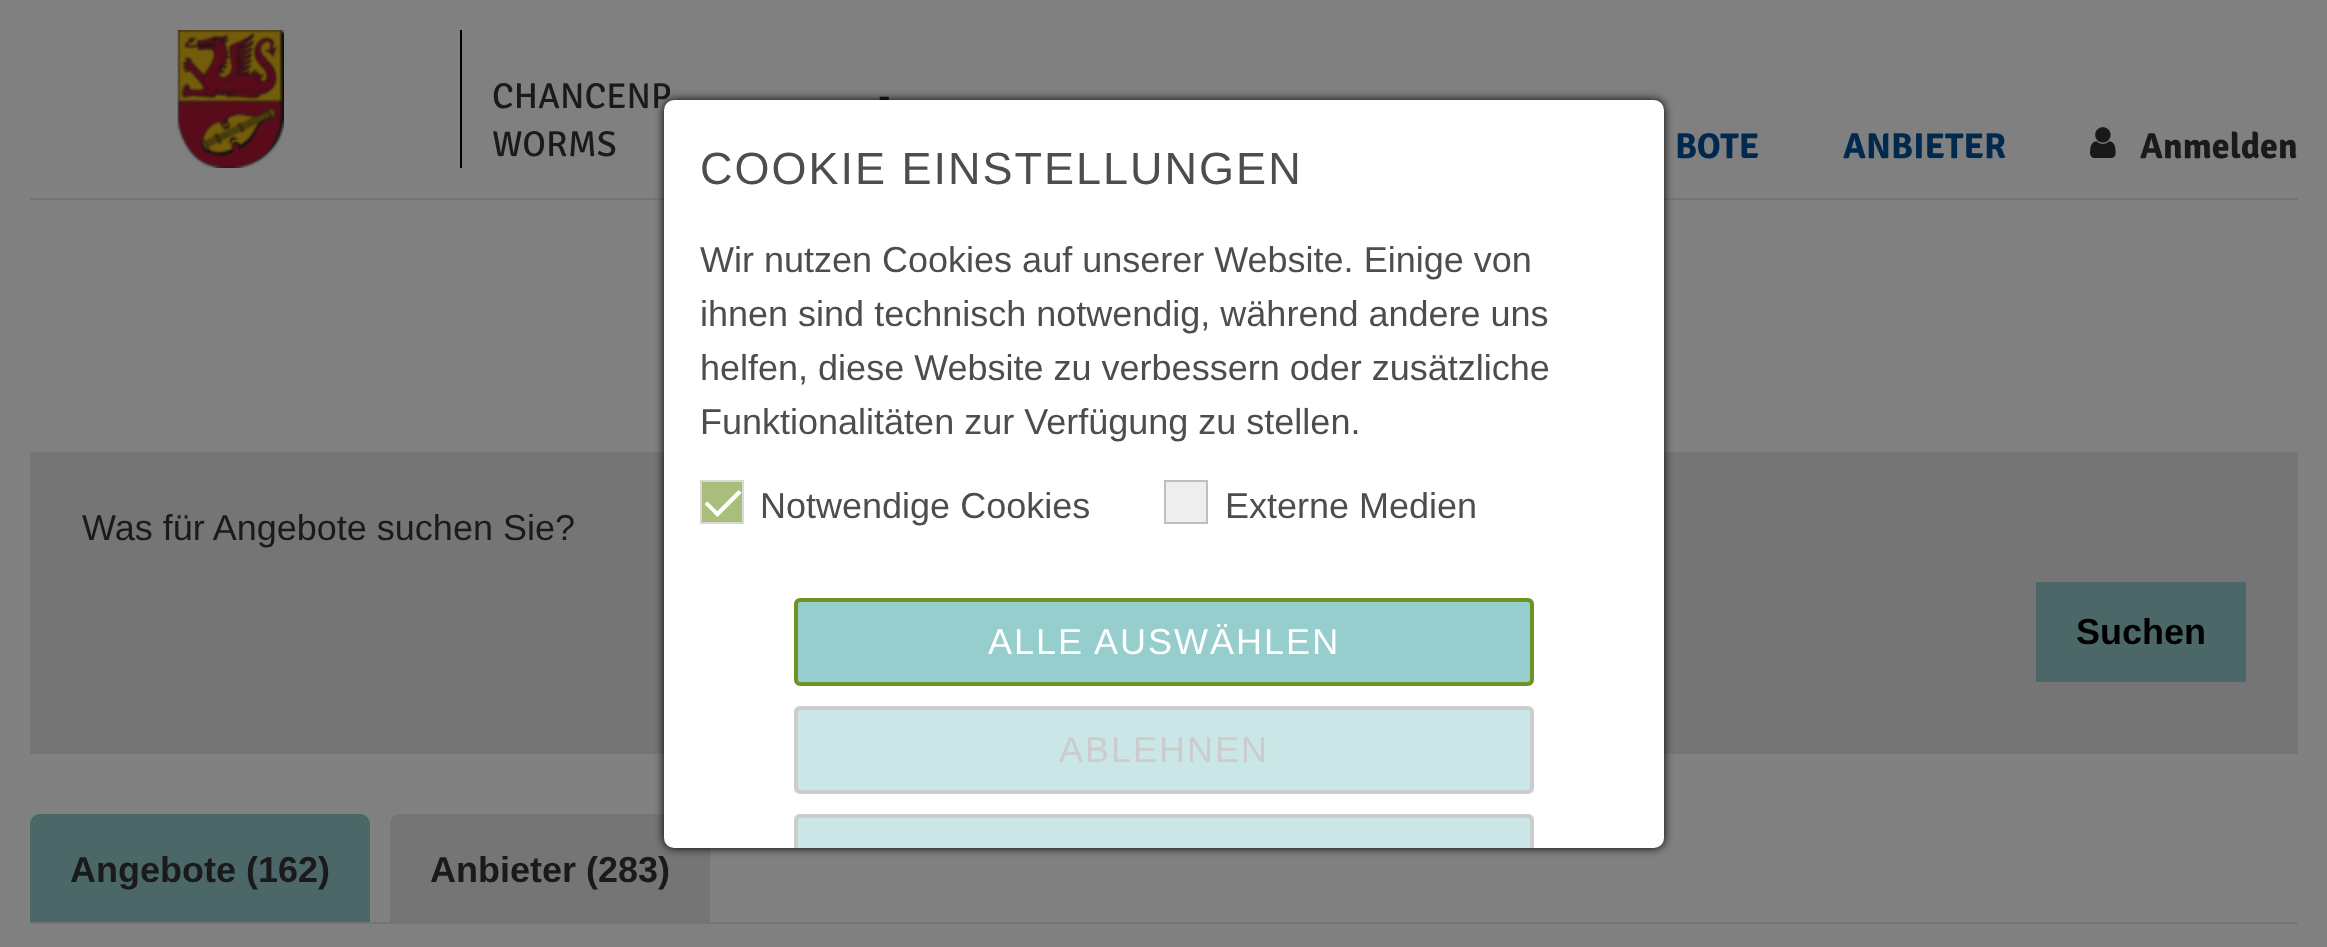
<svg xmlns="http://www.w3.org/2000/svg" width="2327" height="947">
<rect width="100%" height="100%" fill="#808080"/>
<rect x="30" y="198" width="2268" height="2" fill="#757575"/>
<rect x="460" y="30" width="2" height="138" fill="#000"/>
<image x="177" y="30" width="107" height="138" href="media/1.png"/>
<text x="492" y="108" style="font-family:'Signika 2';font-size:36px;font-weight:300;fill:#1a1a1a">CHANCENP</text>
<text x="878" y="108" style="font-family:'Signika 2';font-size:36px;font-weight:300;fill:#1a1a1a">-</text>
<text x="492" y="156" style="font-family:'Signika 2';font-size:36px;font-weight:300;fill:#1a1a1a">WORMS</text>
<text x="1675" y="158" style="font-family:Signika;font-size:36px;font-weight:300;fill:#00294f">BOTE</text>
<text x="1843" y="158" style="font-family:Signika;font-size:36px;font-weight:300;fill:#00294f">ANBIETER</text>
<image x="2090" y="127" width="26" height="31" href="media/2.png"/>
<text x="2140" y="158" style="font-family:Signika;font-size:36px;font-weight:300;fill:#1a1a1a">Anmelden</text>
<rect x="30" y="452" width="2268" height="302" fill="#757575"/>
<text x="82" y="540" style="font-family:Liberation Sans;font-size:36px;fill:#1a1a1a">Was für Angebote suchen Sie?</text>
<rect x="2036" y="582" width="210" height="100" fill="#4b6767"/>
<text x="2076" y="644" style="font-family:Liberation Sans;font-size:36px;font-weight:bold;fill:#000">Suchen</text>
<path d="M40 814h320c5.5 0 10 4.5 10 10v98h-340v-98c0-5.5 4.5-10 10-10z" fill="#4b6767"/>
<text x="70" y="882" style="font-family:Liberation Sans;font-size:36px;font-weight:bold;fill:#1a1a1a">Angebote (162)</text>
<path d="M400 814h300c5.5 0 10 4.5 10 10v98h-320v-98c0-5.5 4.5-10 10-10z" fill="#757575"/>
<text x="430" y="882" style="font-family:Liberation Sans;font-size:36px;font-weight:bold;fill:#1a1a1a">Anbieter (283)</text>
<rect x="30" y="922" width="2268" height="2" fill="#757575"/>
<rect x="664" y="100" width="1000" height="748" rx="10" fill="#000" filter="blur(5px)"/>
<rect x="664" y="100" width="1000" height="748" rx="10" fill="#fff"/>
<text x="700" y="184" style="font-family:Liberation Sans;font-size:45px;letter-spacing:2px;fill:#4d4d4d">COOKIE EINSTELLUNGEN</text>
<text x="700" y="272" style="font-family:Liberation Sans;font-size:36px;fill:#4d4d4d">Wir nutzen Cookies auf unserer Website. Einige von</text>
<text x="700" y="326" style="font-family:Liberation Sans;font-size:36px;fill:#4d4d4d">ihnen sind technisch notwendig, während andere uns</text>
<text x="700" y="380" style="font-family:Liberation Sans;font-size:36px;fill:#4d4d4d">helfen, diese Website zu verbessern oder zusätzliche</text>
<text x="700" y="434" style="font-family:Liberation Sans;font-size:36px;fill:#4d4d4d">Funktionalitäten zur Verfügung zu stellen.</text>
<rect x="701" y="481" width="42" height="42" fill="#a9be7a" stroke="#d9d9d9" stroke-width="2"/>
<path d="M738.5 490l3 3l-24 24l-3-3z" fill="#fff"/>
<path d="M707.5 501.5l12.5 12.5l-2.5 3l-13-13z" fill="#fff"/>
<text x="760" y="518" style="font-family:Liberation Sans;font-size:36px;fill:#4d4d4d">Notwendige Cookies</text>
<rect x="1165" y="481" width="42" height="42" fill="#eee" stroke="#bfbfbf" stroke-width="2"/>
<text x="1225" y="518" style="font-family:Liberation Sans;font-size:36px;fill:#4d4d4d">Externe Medien</text>
<rect x="796" y="600" width="736" height="84" rx="4" fill="#96cdcd" stroke="#6f9322" stroke-width="4"/>
<text x="988" y="654" style="font-family:Liberation Sans;font-size:36px;letter-spacing:2px;fill:#fff">ALLE AUSWÄHLEN</text>
<rect x="796" y="708" width="736" height="84" rx="4" fill="#cbe6e6" stroke="#ccc" stroke-width="4"/>
<text x="1059" y="762" style="font-family:Liberation Sans;font-size:36px;letter-spacing:2px;fill:#ccc">ABLEHNEN</text>
<path d="M800 814h728c3.5 0 6 2.5 6 6v28h-740v-28c0-3.5 2.5-6 6-6z" fill="#cbe6e6"/>
<path d="M800 814c-3 0-6 3-6 6v28h4v-28c0-1 1-2 2-2h728c1 0 2 1 2 2v28h4v-28c0-3-3-6-6-6z" fill="#ccc"/>
</svg>
